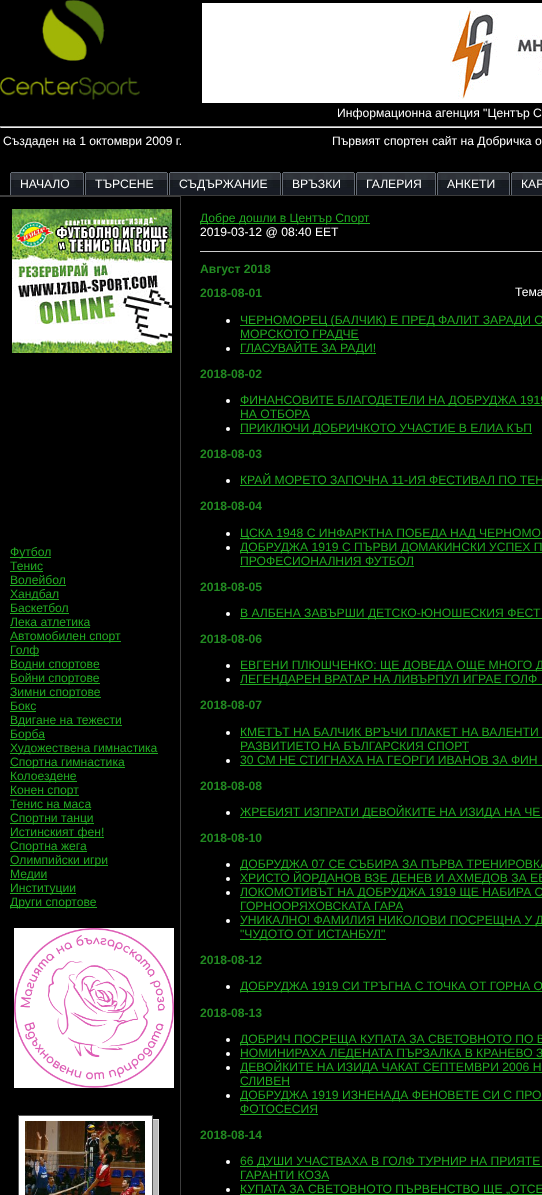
<svg xmlns="http://www.w3.org/2000/svg" width="542" height="1195">
<rect width="100%" height="100%" fill="#000"/>
<image x="0" y="0" width="140" height="100" href="media/1.png"/>
<image x="202" y="3" width="340" height="100" href="media/2.png"/>
<text x="337" y="117" style="font-family:Liberation Sans;font-size:12.15px;fill:#fff">Информационна агенция "Център С</text>
<rect y="126" width="542" height="1" fill="#9f9f9f"/>
<rect y="127" width="542" height="1" fill="#eee"/>
<rect y="126" width="1" height="2" fill="#9f9f9f"/>
<text x="3" y="145" style="font-family:Liberation Sans;font-size:12.15px;fill:#fff">Създаден на 1 октомври 2009 г.</text>
<text x="332" y="145" style="font-family:Liberation Sans;font-size:12.15px;fill:#fff">Първият спортен сайт на Добричка о</text>
<rect y="195" width="542" height="1" fill="#3c3c3c"/>
<image x="10" y="172" width="4" height="23" href="media/3.png"/>
<image x="14" y="172" width="70" height="23" href="media/4.png"/>
<text x="20" y="188" style="font-family:Liberation Sans;font-size:12.15px;fill:#fff">НАЧАЛО</text>
<image x="85" y="172" width="4" height="23" href="media/3.png"/>
<image x="89" y="172" width="79" height="23" href="media/5.png"/>
<text x="95" y="188" style="font-family:Liberation Sans;font-size:12.15px;fill:#fff">ТЪРСЕНЕ</text>
<image x="169" y="172" width="4" height="23" href="media/3.png"/>
<image x="173" y="172" width="109" height="23" href="media/6.png"/>
<text x="179" y="188" style="font-family:Liberation Sans;font-size:12.15px;fill:#fff">СЪДЪРЖАНИЕ</text>
<image x="282" y="172" width="4" height="23" href="media/3.png"/>
<image x="286" y="172" width="69" height="23" href="media/7.png"/>
<text x="292" y="188" style="font-family:Liberation Sans;font-size:12.15px;fill:#fff">ВРЪЗКИ</text>
<image x="356" y="172" width="4" height="23" href="media/3.png"/>
<image x="360" y="172" width="76" height="23" href="media/8.png"/>
<text x="366" y="188" style="font-family:Liberation Sans;font-size:12.15px;fill:#fff">ГАЛЕРИЯ</text>
<image x="437" y="172" width="4" height="23" href="media/3.png"/>
<image x="441" y="172" width="69" height="23" href="media/9.png"/>
<text x="447" y="188" style="font-family:Liberation Sans;font-size:12.15px;fill:#fff">АНКЕТИ</text>
<image x="511" y="172" width="4" height="23" href="media/3.png"/>
<image x="515" y="172" width="27" height="23" href="media/10.png"/>
<text x="521" y="188" style="font-family:Liberation Sans;font-size:12.15px;fill:#fff">КАР</text>
<rect x="-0.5" y="196.5" width="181" height="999" fill="none" stroke="#3c3c3c"/>
<image x="12" y="209" width="160" height="144" href="media/11.png"/>
<rect x="10" y="557" width="41" height="1" fill="#22ab22"/>
<text x="10" y="556" style="font-family:Liberation Sans;font-size:12.15px;fill:#22ab22">Футбол</text>
<text x="10" y="570" style="font-family:Liberation Sans;font-size:12.15px;fill:#22ab22">Тенис</text>
<rect x="10" y="571" width="33" height="1" fill="#22ab22"/>
<text x="10" y="584" style="font-family:Liberation Sans;font-size:12.15px;fill:#22ab22">Волейбол</text>
<rect x="10" y="585" width="56" height="1" fill="#22ab22"/>
<rect x="10" y="599" width="49" height="1" fill="#22ab22"/>
<text x="10" y="598" style="font-family:Liberation Sans;font-size:12.15px;fill:#22ab22">Хандбал</text>
<text x="10" y="612" style="font-family:Liberation Sans;font-size:12.15px;fill:#22ab22">Баскетбол</text>
<rect x="10" y="613" width="59" height="1" fill="#22ab22"/>
<text x="10" y="626" style="font-family:Liberation Sans;font-size:12.15px;fill:#22ab22">Лека атлетика</text>
<rect x="10" y="627" width="80" height="1" fill="#22ab22"/>
<rect x="10" y="641" width="111" height="1" fill="#22ab22"/>
<text x="10" y="640" style="font-family:Liberation Sans;font-size:12.15px;fill:#22ab22">Автомобилен спорт</text>
<rect x="10" y="655" width="29" height="1" fill="#22ab22"/>
<text x="10" y="654" style="font-family:Liberation Sans;font-size:12.15px;fill:#22ab22">Голф</text>
<rect x="10" y="669" width="90" height="1" fill="#22ab22"/>
<text x="10" y="668" style="font-family:Liberation Sans;font-size:12.15px;fill:#22ab22">Водни спортове</text>
<rect x="10" y="683" width="90" height="1" fill="#22ab22"/>
<text x="10" y="682" style="font-family:Liberation Sans;font-size:12.15px;fill:#22ab22">Бойни спортове</text>
<rect x="10" y="697" width="91" height="1" fill="#22ab22"/>
<text x="10" y="696" style="font-family:Liberation Sans;font-size:12.15px;fill:#22ab22">Зимни спортове</text>
<text x="10" y="710" style="font-family:Liberation Sans;font-size:12.15px;fill:#22ab22">Бокс</text>
<rect x="10" y="711" width="26" height="1" fill="#22ab22"/>
<rect x="10" y="725" width="112" height="1" fill="#22ab22"/>
<text x="10" y="724" style="font-family:Liberation Sans;font-size:12.15px;fill:#22ab22">Вдигане на тежести</text>
<rect x="10" y="739" width="35" height="1" fill="#22ab22"/>
<text x="10" y="738" style="font-family:Liberation Sans;font-size:12.15px;fill:#22ab22">Борба</text>
<rect x="10" y="753" width="148" height="1" fill="#22ab22"/>
<text x="10" y="752" style="font-family:Liberation Sans;font-size:12.15px;fill:#22ab22">Художествена гимнастика</text>
<rect x="10" y="767" width="115" height="1" fill="#22ab22"/>
<text x="10" y="766" style="font-family:Liberation Sans;font-size:12.15px;fill:#22ab22">Спортна гимнастика</text>
<rect x="10" y="781" width="67" height="1" fill="#22ab22"/>
<text x="10" y="780" style="font-family:Liberation Sans;font-size:12.15px;fill:#22ab22">Колоездене</text>
<rect x="10" y="795" width="69" height="1" fill="#22ab22"/>
<text x="10" y="794" style="font-family:Liberation Sans;font-size:12.15px;fill:#22ab22">Конен спорт</text>
<text x="10" y="808" style="font-family:Liberation Sans;font-size:12.15px;fill:#22ab22">Тенис на маса</text>
<rect x="10" y="809" width="81" height="1" fill="#22ab22"/>
<rect x="10" y="823" width="84" height="1" fill="#22ab22"/>
<text x="10" y="822" style="font-family:Liberation Sans;font-size:12.15px;fill:#22ab22">Спортни танци</text>
<rect x="10" y="837" width="94" height="1" fill="#22ab22"/>
<text x="10" y="836" style="font-family:Liberation Sans;font-size:12.15px;fill:#22ab22">Истинският фен!</text>
<rect x="10" y="851" width="77" height="1" fill="#22ab22"/>
<text x="10" y="850" style="font-family:Liberation Sans;font-size:12.15px;fill:#22ab22">Спортна жега</text>
<rect x="10" y="865" width="98" height="1" fill="#22ab22"/>
<text x="10" y="864" style="font-family:Liberation Sans;font-size:12.15px;fill:#22ab22">Олимпийски игри</text>
<rect x="10" y="879" width="37" height="1" fill="#22ab22"/>
<text x="10" y="878" style="font-family:Liberation Sans;font-size:12.15px;fill:#22ab22">Медии</text>
<rect x="10" y="893" width="66" height="1" fill="#22ab22"/>
<text x="10" y="892" style="font-family:Liberation Sans;font-size:12.15px;fill:#22ab22">Институции</text>
<rect x="10" y="907" width="87" height="1" fill="#22ab22"/>
<text x="10" y="906" style="font-family:Liberation Sans;font-size:12.15px;fill:#22ab22">Други спортове</text>
<image x="14" y="928" width="160" height="160" href="media/12.png"/>
<rect x="153" y="1120" width="5" height="75" fill="#bbb"/>
<rect x="22.5" y="1119.5" width="136" height="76" fill="none" stroke="#ddd"/>
<rect x="18.5" y="1115.5" width="134" height="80" fill="#fff" stroke="#555"/>
<image x="25" y="1121" width="120" height="74" href="media/13.png"/>
<rect x="200" y="251" width="342" height="1" fill="#ccc"/>
<rect x="200" y="223" width="170" height="1" fill="#22ab22"/>
<text x="200" y="222" style="font-family:Liberation Sans;font-size:12.15px;fill:#22ab22">Добре дошли в Център Спорт</text>
<text x="200" y="236" style="font-family:Liberation Sans;font-size:12.15px;fill:#fff">2019-03-12 @ 08:40 EET</text>
<text x="200" y="273" style="font-family:Liberation Sans;font-size:12.15px;font-weight:bold;fill:#228b22">Август 2018</text>
<text x="515" y="296" style="font-family:Liberation Sans;font-size:12.15px;fill:#fff">Тема</text>
<text x="200" y="297" style="font-family:Liberation Sans;font-size:12.15px;font-weight:bold;fill:#228b22">2018-08-01</text>
<circle cx="228" cy="321" r="2" fill="#fff"/>
<rect x="240" y="325" width="302" height="1" fill="#22ab22"/>
<text x="240" y="324" style="font-family:Liberation Sans;font-size:12.15px;fill:#22ab22">ЧЕРНОМОРЕЦ (БАЛЧИК) Е ПРЕД ФАЛИТ ЗАРАДИ О</text>
<rect x="240" y="339" width="119" height="1" fill="#22ab22"/>
<text x="240" y="338" style="font-family:Liberation Sans;font-size:12.15px;fill:#22ab22">МОРСКОТО ГРАДЧЕ</text>
<circle cx="228" cy="349" r="2" fill="#fff"/>
<rect x="240" y="353" width="136" height="1" fill="#22ab22"/>
<text x="240" y="352" style="font-family:Liberation Sans;font-size:12.15px;fill:#22ab22">ГЛАСУВАЙТЕ ЗА РАДИ!</text>
<text x="200" y="378" style="font-family:Liberation Sans;font-size:12.15px;font-weight:bold;fill:#228b22">2018-08-02</text>
<circle cx="228" cy="401" r="2" fill="#fff"/>
<rect x="240" y="405" width="302" height="1" fill="#22ab22"/>
<text x="240" y="404" style="font-family:Liberation Sans;font-size:12.15px;fill:#22ab22">ФИНАНСОВИТЕ БЛАГОДЕТЕЛИ НА ДОБРУДЖА 1919</text>
<text x="240" y="418" style="font-family:Liberation Sans;font-size:12.15px;fill:#22ab22">НА ОТБОРА</text>
<rect x="240" y="419" width="70" height="1" fill="#22ab22"/>
<circle cx="228" cy="429" r="2" fill="#fff"/>
<rect x="240" y="433" width="292" height="1" fill="#22ab22"/>
<text x="240" y="432" style="font-family:Liberation Sans;font-size:12.15px;fill:#22ab22">ПРИКЛЮЧИ ДОБРИЧКОТО УЧАСТИЕ В ЕЛИА КЪП</text>
<text x="200" y="458" style="font-family:Liberation Sans;font-size:12.15px;font-weight:bold;fill:#228b22">2018-08-03</text>
<circle cx="228" cy="481" r="2" fill="#fff"/>
<text x="240" y="484" style="font-family:Liberation Sans;font-size:12.15px;fill:#22ab22">КРАЙ МОРЕТО ЗАПОЧНА 11-ИЯ ФЕСТИВАЛ ПО ТЕН</text>
<rect x="240" y="485" width="302" height="1" fill="#22ab22"/>
<text x="200" y="510" style="font-family:Liberation Sans;font-size:12.15px;font-weight:bold;fill:#228b22">2018-08-04</text>
<circle cx="228" cy="534" r="2" fill="#fff"/>
<rect x="240" y="538" width="302" height="1" fill="#22ab22"/>
<text x="240" y="537" style="font-family:Liberation Sans;font-size:12.15px;fill:#22ab22">ЦСКА 1948 С ИНФАРКТНА ПОБЕДА НАД ЧЕРНОМО</text>
<circle cx="228" cy="548" r="2" fill="#fff"/>
<rect x="240" y="552" width="302" height="1" fill="#22ab22"/>
<text x="240" y="551" style="font-family:Liberation Sans;font-size:12.15px;fill:#22ab22">ДОБРУДЖА 1919 С ПЪРВИ ДОМАКИНСКИ УСПЕХ П</text>
<text x="240" y="565" style="font-family:Liberation Sans;font-size:12.15px;fill:#22ab22">ПРОФЕСИОНАЛНИЯ ФУТБОЛ</text>
<rect x="240" y="566" width="174" height="1" fill="#22ab22"/>
<text x="200" y="591" style="font-family:Liberation Sans;font-size:12.15px;font-weight:bold;fill:#228b22">2018-08-05</text>
<circle cx="228" cy="614" r="2" fill="#fff"/>
<rect x="240" y="618" width="302" height="1" fill="#22ab22"/>
<text x="240" y="617" style="font-family:Liberation Sans;font-size:12.15px;fill:#22ab22">В АЛБЕНА ЗАВЪРШИ ДЕТСКО-ЮНОШЕСКИЯ ФЕСТ</text>
<text x="200" y="643" style="font-family:Liberation Sans;font-size:12.15px;font-weight:bold;fill:#228b22">2018-08-06</text>
<circle cx="228" cy="666" r="2" fill="#fff"/>
<rect x="240" y="670" width="302" height="1" fill="#22ab22"/>
<text x="240" y="669" style="font-family:Liberation Sans;font-size:12.15px;fill:#22ab22">ЕВГЕНИ ПЛЮШЧЕНКО: ЩЕ ДОВЕДА ОЩЕ МНОГО Д</text>
<circle cx="228" cy="680" r="2" fill="#fff"/>
<rect x="240" y="684" width="302" height="1" fill="#22ab22"/>
<text x="240" y="683" style="font-family:Liberation Sans;font-size:12.15px;fill:#22ab22">ЛЕГЕНДАРЕН ВРАТАР НА ЛИВЪРПУЛ ИГРАЕ ГОЛФ</text>
<text x="200" y="709" style="font-family:Liberation Sans;font-size:12.15px;font-weight:bold;fill:#228b22">2018-08-07</text>
<circle cx="228" cy="733" r="2" fill="#fff"/>
<text x="240" y="736" style="font-family:Liberation Sans;font-size:12.15px;fill:#22ab22">КМЕТЪТ НА БАЛЧИК ВРЪЧИ ПЛАКЕТ НА ВАЛЕНТИ</text>
<rect x="240" y="737" width="302" height="1" fill="#22ab22"/>
<text x="240" y="750" style="font-family:Liberation Sans;font-size:12.15px;fill:#22ab22">РАЗВИТИЕТО НА БЪЛГАРСКИЯ СПОРТ</text>
<rect x="240" y="751" width="229" height="1" fill="#22ab22"/>
<circle cx="228" cy="761" r="2" fill="#fff"/>
<text x="240" y="764" style="font-family:Liberation Sans;font-size:12.15px;fill:#22ab22">30 СМ НЕ СТИГНАХА НА ГЕОРГИ ИВАНОВ ЗА ФИН</text>
<rect x="240" y="765" width="302" height="1" fill="#22ab22"/>
<text x="200" y="790" style="font-family:Liberation Sans;font-size:12.15px;font-weight:bold;fill:#228b22">2018-08-08</text>
<circle cx="228" cy="813" r="2" fill="#fff"/>
<rect x="240" y="817" width="302" height="1" fill="#22ab22"/>
<text x="240" y="816" style="font-family:Liberation Sans;font-size:12.15px;fill:#22ab22">ЖРЕБИЯТ ИЗПРАТИ ДЕВОЙКИТЕ НА ИЗИДА НА ЧЕ</text>
<text x="200" y="842" style="font-family:Liberation Sans;font-size:12.15px;font-weight:bold;fill:#228b22">2018-08-10</text>
<circle cx="228" cy="865" r="2" fill="#fff"/>
<rect x="240" y="869" width="302" height="1" fill="#22ab22"/>
<text x="240" y="868" style="font-family:Liberation Sans;font-size:12.15px;fill:#22ab22">ДОБРУДЖА 07 СЕ СЪБИРА ЗА ПЪРВА ТРЕНИРОВКА</text>
<circle cx="228" cy="879" r="2" fill="#fff"/>
<rect x="240" y="883" width="302" height="1" fill="#22ab22"/>
<text x="240" y="882" style="font-family:Liberation Sans;font-size:12.15px;fill:#22ab22">ХРИСТО ЙОРДАНОВ ВЗЕ ДЕНЕВ И АХМЕДОВ ЗА ЕВ</text>
<circle cx="228" cy="893" r="2" fill="#fff"/>
<rect x="240" y="897" width="302" height="1" fill="#22ab22"/>
<text x="240" y="896" style="font-family:Liberation Sans;font-size:12.15px;fill:#22ab22">ЛОКОМОТИВЪТ НА ДОБРУДЖА 1919 ЩЕ НАБИРА С</text>
<text x="240" y="910" style="font-family:Liberation Sans;font-size:12.15px;fill:#22ab22">ГОРНООРЯХОВСКАТА ГАРА</text>
<rect x="240" y="911" width="163" height="1" fill="#22ab22"/>
<circle cx="228" cy="921" r="2" fill="#fff"/>
<rect x="240" y="925" width="302" height="1" fill="#22ab22"/>
<text x="240" y="924" style="font-family:Liberation Sans;font-size:12.15px;fill:#22ab22">УНИКАЛНО! ФАМИЛИЯ НИКОЛОВИ ПОСРЕЩНА У Д</text>
<rect x="240" y="939" width="146" height="1" fill="#22ab22"/>
<text x="240" y="938" style="font-family:Liberation Sans;font-size:12.15px;fill:#22ab22">"ЧУДОТО ОТ ИСТАНБУЛ"</text>
<text x="200" y="964" style="font-family:Liberation Sans;font-size:12.15px;font-weight:bold;fill:#228b22">2018-08-12</text>
<circle cx="228" cy="987" r="2" fill="#fff"/>
<rect x="240" y="991" width="302" height="1" fill="#22ab22"/>
<text x="240" y="990" style="font-family:Liberation Sans;font-size:12.15px;fill:#22ab22">ДОБРУДЖА 1919 СИ ТРЪГНА С ТОЧКА ОТ ГОРНА О</text>
<text x="200" y="1017" style="font-family:Liberation Sans;font-size:12.15px;font-weight:bold;fill:#228b22">2018-08-13</text>
<circle cx="228" cy="1040" r="2" fill="#fff"/>
<rect x="240" y="1044" width="302" height="1" fill="#22ab22"/>
<text x="240" y="1043" style="font-family:Liberation Sans;font-size:12.15px;fill:#22ab22">ДОБРИЧ ПОСРЕЩА КУПАТА ЗА СВЕТОВНОТО ПО В</text>
<circle cx="228" cy="1054" r="2" fill="#fff"/>
<rect x="240" y="1058" width="302" height="1" fill="#22ab22"/>
<text x="240" y="1057" style="font-family:Liberation Sans;font-size:12.15px;fill:#22ab22">НОМИНИРАХА ЛЕДЕНАТА ПЪРЗАЛКА В КРАНЕВО З</text>
<circle cx="228" cy="1068" r="2" fill="#fff"/>
<rect x="240" y="1072" width="302" height="1" fill="#22ab22"/>
<text x="240" y="1071" style="font-family:Liberation Sans;font-size:12.15px;fill:#22ab22">ДЕВОЙКИТЕ НА ИЗИДА ЧАКАТ СЕПТЕМВРИ 2006 Н</text>
<text x="240" y="1085" style="font-family:Liberation Sans;font-size:12.15px;fill:#22ab22">СЛИВЕН</text>
<rect x="240" y="1086" width="50" height="1" fill="#22ab22"/>
<circle cx="228" cy="1096" r="2" fill="#fff"/>
<rect x="240" y="1100" width="302" height="1" fill="#22ab22"/>
<text x="240" y="1099" style="font-family:Liberation Sans;font-size:12.15px;fill:#22ab22">ДОБРУДЖА 1919 ИЗНЕНАДА ФЕНОВЕТЕ СИ С ПРО</text>
<text x="240" y="1113" style="font-family:Liberation Sans;font-size:12.15px;fill:#22ab22">ФОТОСЕСИЯ</text>
<rect x="240" y="1114" width="78" height="1" fill="#22ab22"/>
<text x="200" y="1139" style="font-family:Liberation Sans;font-size:12.15px;font-weight:bold;fill:#228b22">2018-08-14</text>
<circle cx="228" cy="1162" r="2" fill="#fff"/>
<rect x="240" y="1166" width="302" height="1" fill="#22ab22"/>
<text x="240" y="1165" style="font-family:Liberation Sans;font-size:12.15px;fill:#22ab22">66 ДУШИ УЧАСТВАХА В ГОЛФ ТУРНИР НА ПРИЯТЕ</text>
<text x="240" y="1179" style="font-family:Liberation Sans;font-size:12.15px;fill:#22ab22">ГАРАНТИ КОЗА</text>
<rect x="240" y="1180" width="89" height="1" fill="#22ab22"/>
<circle cx="228" cy="1190" r="2" fill="#fff"/>
<rect x="240" y="1194" width="302" height="1" fill="#22ab22"/>
<text x="240" y="1193" style="font-family:Liberation Sans;font-size:12.15px;fill:#22ab22">КУПАТА ЗА СВЕТОВНОТО ПЪРВЕНСТВО ЩЕ „ОТСЕ</text>
</svg>
